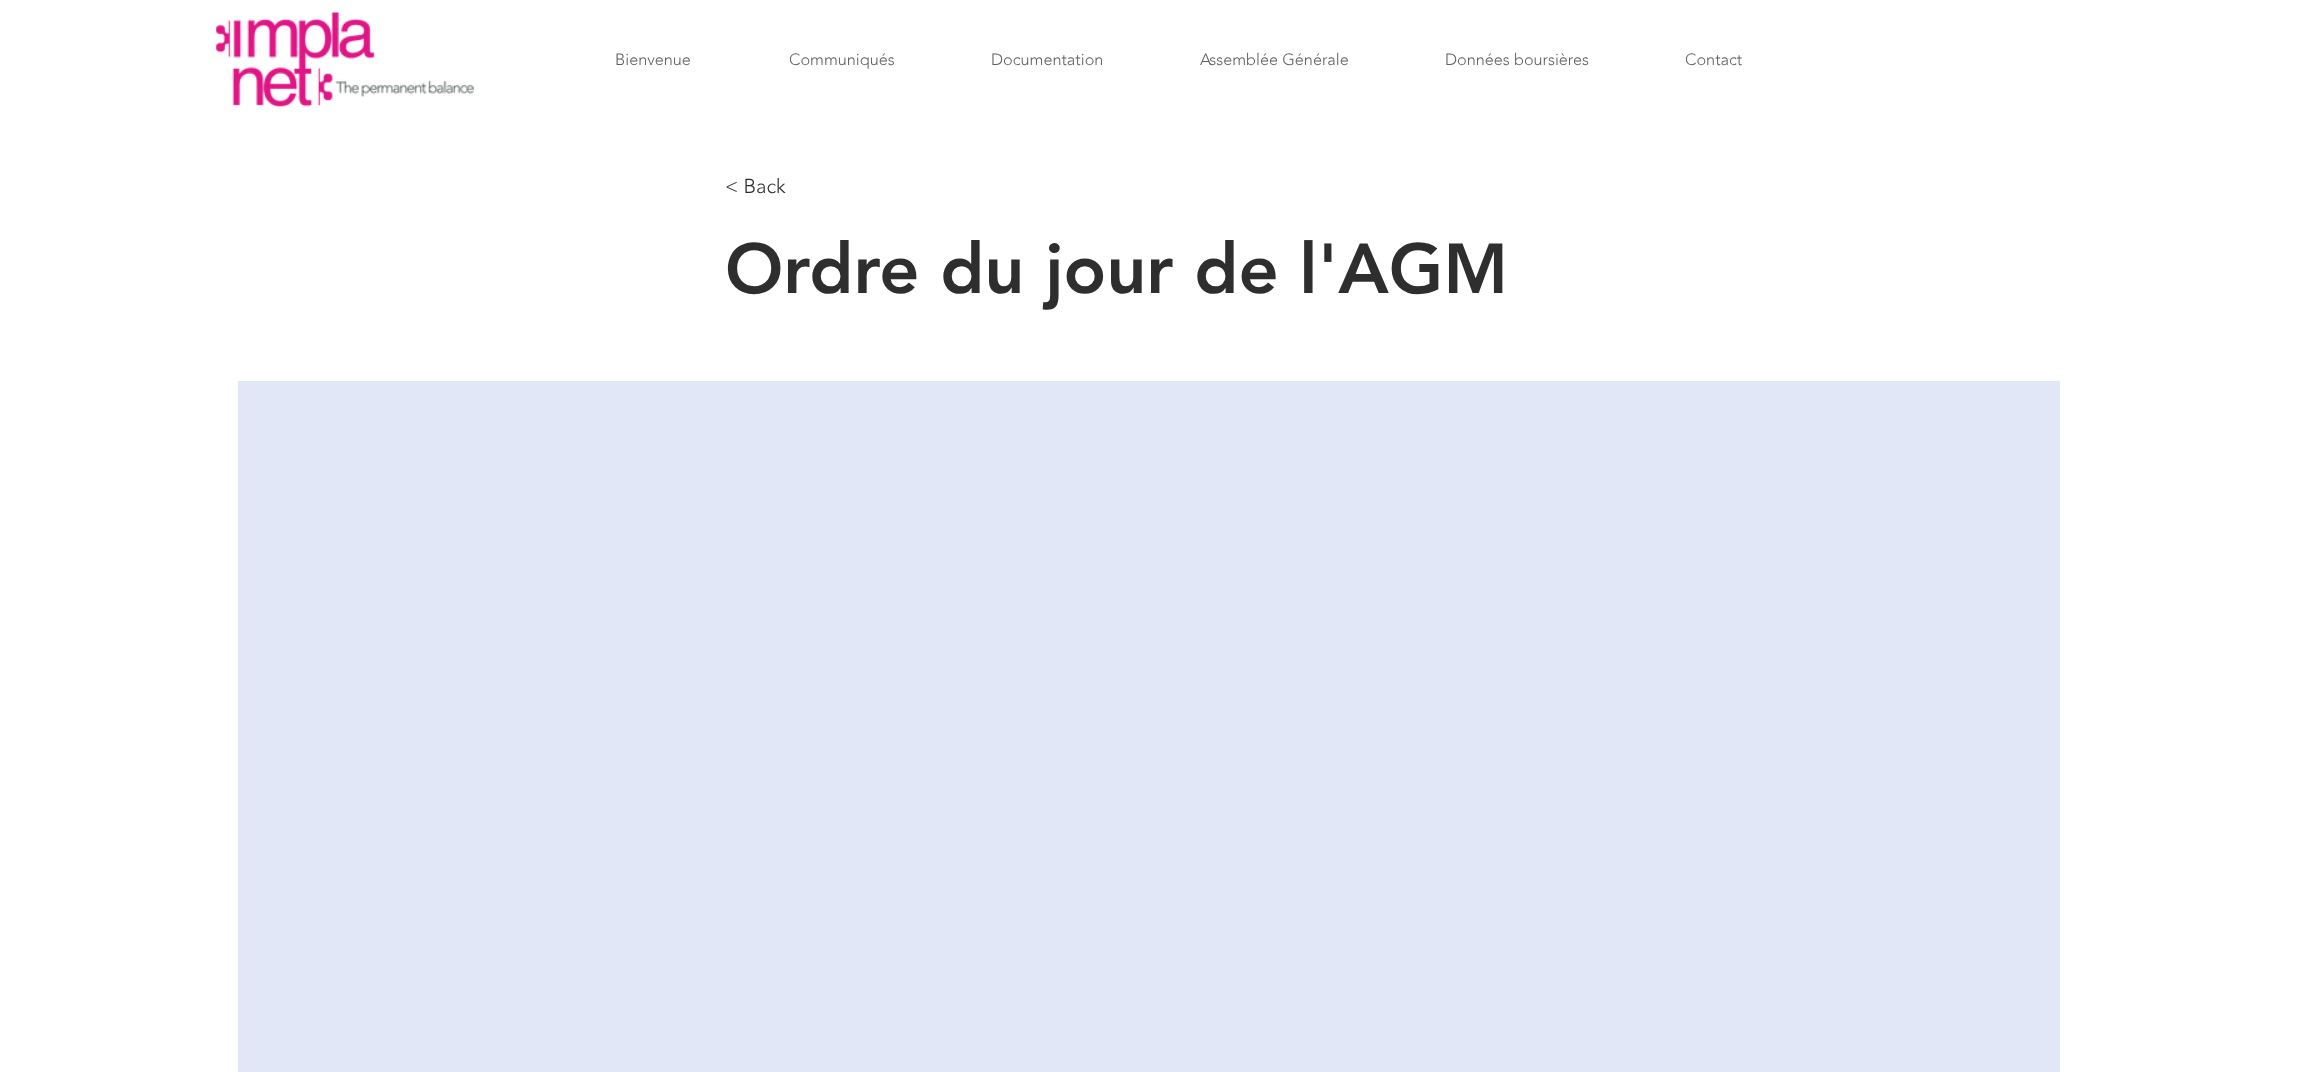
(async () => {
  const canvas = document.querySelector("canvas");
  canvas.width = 2297;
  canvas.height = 1072;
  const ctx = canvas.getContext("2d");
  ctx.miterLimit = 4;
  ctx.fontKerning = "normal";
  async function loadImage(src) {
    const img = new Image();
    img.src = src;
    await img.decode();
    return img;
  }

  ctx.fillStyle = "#ffffff";
  ctx.fillRect(0, 0, 2297, 1072);
  ctx.drawImage(await loadImage("img/1.png"), 216, 12, 258, 95);
  ctx.fillStyle = "#e1e7f7";
  ctx.fillRect(238, 381, 1822, 691);
  ctx.font = "300 16.25px 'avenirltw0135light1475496'";
  ctx.fillStyle = "#605e5e";
  for (const [text, x, y] of [
    ["Bienvenue", 615, 65],
    ["Communiqués", 789, 65],
    ["Documentation", 991, 65],
    ["Assemblée Générale", 1200, 65],
    ["Données boursières", 1445, 65],
    ["Contact", 1685, 65],
  ]) {
    ctx.fillText(text, x, y);
  }
  ctx.font = "300 20px 'avenirltw0135light1475496'";
  ctx.fillStyle = "#2f2e2e";
  ctx.fillText("< Back", 725, 193);
  ctx.font = "900 70px 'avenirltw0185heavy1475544'";
  ctx.fillText("Ordre du jour de l'AGM", 725, 293);
})();
